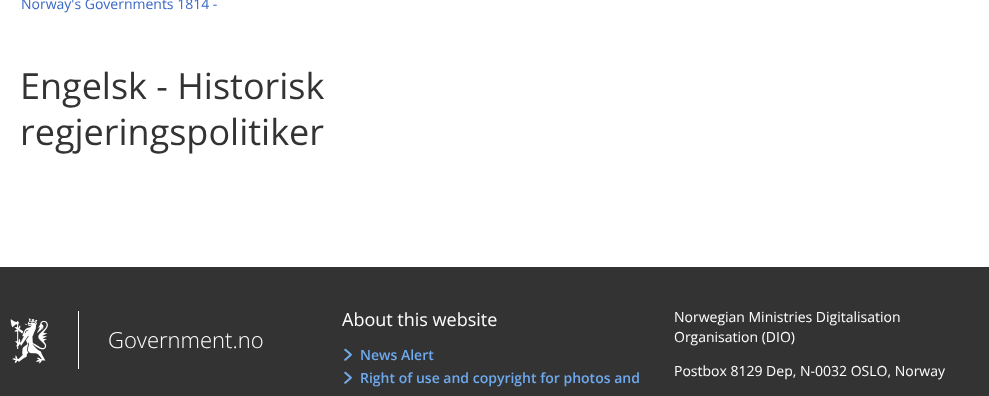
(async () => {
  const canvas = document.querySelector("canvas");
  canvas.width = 989;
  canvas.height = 396;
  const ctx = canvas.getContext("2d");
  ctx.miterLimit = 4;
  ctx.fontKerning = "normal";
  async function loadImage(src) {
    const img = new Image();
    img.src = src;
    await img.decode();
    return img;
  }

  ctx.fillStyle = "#ffffff";
  ctx.fillRect(0, 0, 989, 396);
  ctx.fillStyle = "#333333";
  ctx.fillRect(0, 267, 989, 129);
  ctx.drawImage(await loadImage("img/1.png"), 10, 318, 38, 46);
  ctx.fillStyle = "#ffffff";
  ctx.fillRect(78, 311, 1, 58);
  ctx.drawImage(await loadImage("img/2.png"), 344, 348, 8, 13);
  ctx.drawImage(await loadImage("img/3.png"), 344, 348, 8, 13);
  ctx.drawImage(await loadImage("img/2.png"), 344, 371, 8, 13);
  ctx.drawImage(await loadImage("img/3.png"), 344, 371, 8, 13);
  ctx.font = "14px Open Sans";
  ctx.fillStyle = "#3867c8";
  ctx.fillText("Norway's Governments 1814 -", 21, 9);
  ctx.font = "36px Open Sans";
  ctx.fillStyle = "#333333";
  ctx.fillText("Engelsk - Historisk", 20, 99);
  ctx.fillText("regjeringspolitiker", 20, 145);
  ctx.font = "300 22px Open Sans";
  ctx.fillStyle = "#ffffff";
  ctx.fillText("Government.no", 108, 348);
  ctx.font = "18px Open Sans";
  ctx.fillText("About this website", 342, 326);
  ctx.font = "600 14px Open Sans";
  ctx.fillStyle = "#6eaaf0";
  ctx.fillText("News Alert", 360, 360);
  ctx.fillText("Right of use and copyright for photos and", 360, 383);
  ctx.font = "14px Open Sans";
  ctx.fillStyle = "#ffffff";
  for (const [text, x, y] of [
    ["Norwegian Ministries Digitalisation", 674, 322],
    ["Organisation (DIO)", 674, 342],
    ["Postbox 8129 Dep, N-0032 OSLO, Norway", 674, 376],
  ]) {
    ctx.fillText(text, x, y);
  }
})();
